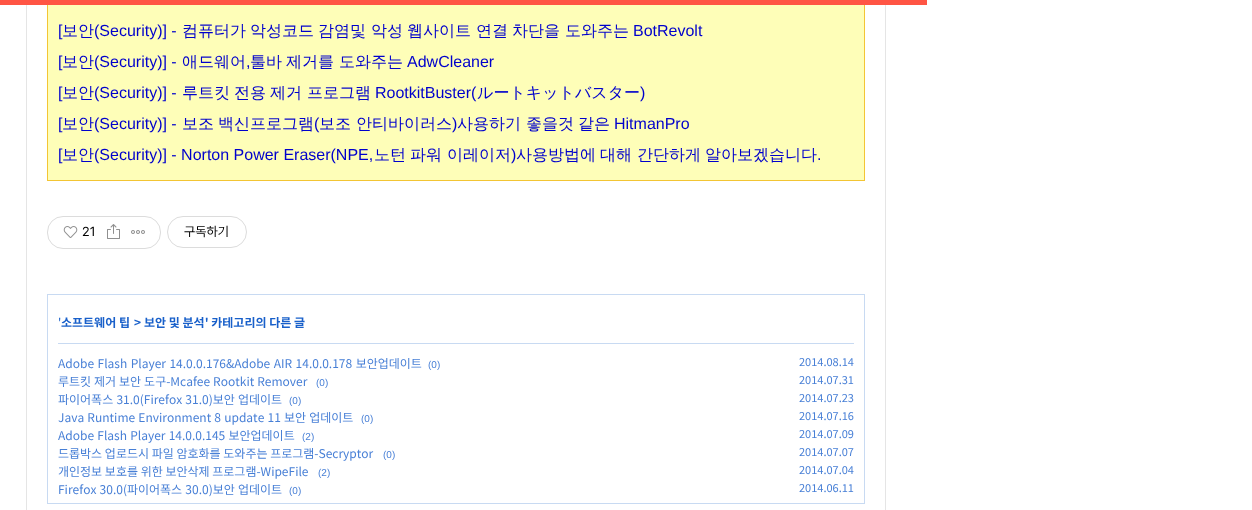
(async () => {
  const canvas = document.querySelector("canvas");
  canvas.width = 1252;
  canvas.height = 510;
  const ctx = canvas.getContext("2d");
  ctx.miterLimit = 4;
  ctx.fontKerning = "none";
  async function loadImage(src) {
    const img = new Image();
    img.src = src;
    await img.decode();
    return img;
  }

  ctx.fillStyle = "#ffffff";
  ctx.fillRect(0, 0, 1252, 510);
  ctx.strokeStyle = "#e5e5e5";
  ctx.strokeRect(26.5, -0.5, 859, 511);
  ctx.fillStyle = "#fefeb8";
  ctx.fillRect(48, 5, 816, 175);
  ctx.strokeStyle = "#f3c534";
  ctx.strokeRect(47.5, -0.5, 817, 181);
  ctx.fillStyle = "#ff5544";
  ctx.fillRect(0, 0, 927, 5);
  ctx.beginPath();
  ctx.roundRect(47.5, 216.5, 113, 32, 15.5);
  ctx.strokeStyle = "#dcdcdc";
  ctx.stroke();
  ctx.drawImage(await loadImage("img/1.png"), 63, 226, 15, 12);
  ctx.drawImage(await loadImage("img/2.png"), 107, 224, 13, 15);
  ctx.drawImage(await loadImage("img/3.png"), 131, 230, 14, 4);
  ctx.beginPath();
  ctx.roundRect(167.5, 216.5, 79, 31, 15.5);
  ctx.stroke();
  ctx.strokeStyle = "#c8daf2";
  ctx.strokeRect(47.5, 294.5, 817, 209);
  ctx.fillStyle = "#c8daf2";
  ctx.fillRect(58, 343, 796, 1);
  ctx.font = "16px Liberation Sans";
  ctx.fillStyle = "#0000cc";
  ctx.fillText("[", 58, 36);
  ctx.font = "500 16px WenQuanYi Zen Hei";
  ctx.fillText("보안", 62, 36);
  ctx.font = "16px Liberation Sans";
  ctx.fillText("(Security)] -", 94, 36);
  ctx.font = "500 16px WenQuanYi Zen Hei";
  for (const [text, x, y] of [
    ["컴퓨터가", 182, 36],
    ["악성코드", 250, 36],
    ["감염및", 318, 36],
    ["악성", 371, 36],
    ["웹사이트", 407, 36],
    ["연결", 476, 36],
    ["차단을", 512, 36],
    ["도와주는", 565, 36],
  ]) {
    ctx.fillText(text, x, y);
  }
  ctx.font = "16px Liberation Sans";
  ctx.fillText("BotRevolt", 633, 36);
  ctx.fillText("[", 58, 67);
  ctx.font = "500 16px WenQuanYi Zen Hei";
  ctx.fillText("보안", 62, 67);
  ctx.font = "16px Liberation Sans";
  ctx.fillText("(Security)] -", 94, 67);
  ctx.font = "500 16px WenQuanYi Zen Hei";
  ctx.fillText("애드웨어", 182, 67);
  ctx.font = "16px Liberation Sans";
  ctx.fillText(",", 246, 67);
  ctx.font = "500 16px WenQuanYi Zen Hei";
  for (const [text, x, y] of [
    ["툴바", 250, 67],
    ["제거를", 286, 67],
    ["도와주는", 339, 67],
  ]) {
    ctx.fillText(text, x, y);
  }
  ctx.font = "16px Liberation Sans";
  ctx.fillText("AdwCleaner", 407, 67);
  ctx.fillText("[", 58, 98);
  ctx.font = "500 16px WenQuanYi Zen Hei";
  ctx.fillText("보안", 62, 98);
  ctx.font = "16px Liberation Sans";
  ctx.fillText("(Security)] -", 94, 98);
  ctx.font = "500 16px WenQuanYi Zen Hei";
  for (const [text, x, y] of [
    ["루트킷", 182, 98],
    ["전용", 234, 98],
    ["제거", 270, 98],
    ["프로그램", 307, 98],
  ]) {
    ctx.fillText(text, x, y);
  }
  ctx.font = "16px Liberation Sans";
  ctx.fillText("RootkitBuster(", 375, 98);
  ctx.font = "500 16px WenQuanYi Zen Hei";
  ctx.fillText("ルートキットバスター", 477, 98);
  ctx.font = "16px Liberation Sans";
  ctx.fillText(")", 640, 98);
  ctx.fillText("[", 58, 129);
  ctx.font = "500 16px WenQuanYi Zen Hei";
  ctx.fillText("보안", 62, 129);
  ctx.font = "16px Liberation Sans";
  ctx.fillText("(Security)] -", 94, 129);
  ctx.font = "500 16px WenQuanYi Zen Hei";
  ctx.fillText("보조", 182, 129);
  ctx.fillText("백신프로그램", 218, 129);
  ctx.font = "16px Liberation Sans";
  ctx.fillText("(", 314, 129);
  ctx.font = "500 16px WenQuanYi Zen Hei";
  ctx.fillText("보조", 319, 129);
  ctx.fillText("안티바이러스", 356, 129);
  ctx.font = "16px Liberation Sans";
  ctx.fillText(")", 452, 129);
  ctx.font = "500 16px WenQuanYi Zen Hei";
  for (const [text, x, y] of [
    ["사용하기", 457, 129],
    ["좋을것", 526, 129],
    ["같은", 578, 129],
  ]) {
    ctx.fillText(text, x, y);
  }
  ctx.font = "16px Liberation Sans";
  ctx.fillText("HitmanPro", 614, 129);
  ctx.fillText("[", 58, 160);
  ctx.font = "500 16px WenQuanYi Zen Hei";
  ctx.fillText("보안", 62, 160);
  ctx.font = "16px Liberation Sans";
  ctx.fillText("(Security)] - Norton Power Eraser(NPE,", 94, 160);
  ctx.font = "500 16px WenQuanYi Zen Hei";
  for (const [text, x, y] of [
    ["노턴", 374, 160],
    ["파워", 410, 160],
    ["이레이저", 447, 160],
  ]) {
    ctx.fillText(text, x, y);
  }
  ctx.font = "16px Liberation Sans";
  ctx.fillText(")", 511, 160);
  ctx.font = "500 16px WenQuanYi Zen Hei";
  for (const [text, x, y] of [
    ["사용방법에", 516, 160],
    ["대해", 600, 160],
    ["간단하게", 637, 160],
    ["알아보겠습니다", 705, 160],
  ]) {
    ctx.fillText(text, x, y);
  }
  ctx.font = "16px Liberation Sans";
  ctx.fillText(".", 817, 160);
  ctx.font = "13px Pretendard";
  ctx.fillStyle = "#000000";
  ctx.fillText("21", 82, 236);
  ctx.fillText("구독하기", 184, 236);
  ctx.font = "12px Noto Sans KR";
  ctx.fillStyle = "#1960ca";
  ctx.fillText("'", 58, 327);
  ctx.font = "bold 12px Noto Sans KR";
  for (const [text, x, y] of [
    ["소프트웨어 팁", 61, 327],
    [">", 134, 327],
    ["보안 및 분석' 카테고리의 다른 글", 144, 327],
  ]) {
    ctx.fillText(text, x, y);
  }
  ctx.wordSpacing = "0.75px";
  ctx.font = "12px Noto Sans KR";
  ctx.fillStyle = "#477fd6";
  ctx.fillText("Adobe Flash Player 14.0.0.176&Adobe AIR 14.0.0.178 보안업데이트", 58, 368);
  ctx.wordSpacing = "0px";
  ctx.font = "10px Liberation Sans";
  ctx.fillText("(0)", 428, 368);
  ctx.font = "11px Noto Sans KR";
  ctx.fillText("2014.08.14", 799, 366);
  ctx.wordSpacing = "0.25px";
  ctx.font = "12px Noto Sans KR";
  ctx.fillText("루트킷 제거 보안 도구-Mcafee Rootkit Remover", 58, 386);
  ctx.wordSpacing = "0px";
  ctx.font = "10px Liberation Sans";
  ctx.fillText("(0)", 316, 386);
  ctx.font = "11px Noto Sans KR";
  ctx.fillText("2014.07.31", 799, 384);
  ctx.wordSpacing = "0.5px";
  ctx.font = "12px Noto Sans KR";
  ctx.fillText("파이어폭스 31.0(Firefox 31.0)보안 업데이트", 58, 404);
  ctx.wordSpacing = "0px";
  ctx.font = "10px Liberation Sans";
  ctx.fillText("(0)", 289, 404);
  ctx.font = "11px Noto Sans KR";
  ctx.fillText("2014.07.23", 799, 402);
  ctx.wordSpacing = "0.5px";
  ctx.font = "12px Noto Sans KR";
  ctx.fillText("Java Runtime Environment 8 update 11 보안 업데이트", 58, 422);
  ctx.wordSpacing = "0px";
  ctx.font = "10px Liberation Sans";
  ctx.fillText("(0)", 361, 422);
  ctx.font = "11px Noto Sans KR";
  ctx.fillText("2014.07.16", 799, 420);
  ctx.wordSpacing = "0.5px";
  ctx.font = "12px Noto Sans KR";
  ctx.fillText("Adobe Flash Player 14.0.0.145 보안업데이트", 58, 440);
  ctx.wordSpacing = "0px";
  ctx.font = "10px Liberation Sans";
  ctx.fillText("(2)", 302, 440);
  ctx.font = "11px Noto Sans KR";
  ctx.fillText("2014.07.09", 799, 438);
  ctx.font = "12px Noto Sans KR";
  ctx.fillText("드롭박스 업로드시 파일 암호화를 도와주는 프로그램-Secryptor", 58, 458);
  ctx.font = "10px Liberation Sans";
  ctx.fillText("(0)", 383, 458);
  ctx.font = "11px Noto Sans KR";
  ctx.fillText("2014.07.07", 799, 456);
  ctx.font = "12px Noto Sans KR";
  ctx.fillText("개인정보 보호를 위한 보안삭제 프로그램-WipeFile", 58, 476);
  ctx.font = "10px Liberation Sans";
  ctx.fillText("(2)", 318, 476);
  ctx.font = "11px Noto Sans KR";
  ctx.fillText("2014.07.04", 799, 474);
  ctx.wordSpacing = "0.5px";
  ctx.font = "12px Noto Sans KR";
  ctx.fillText("Firefox 30.0(파이어폭스 30.0)보안 업데이트", 58, 494);
  ctx.wordSpacing = "0px";
  ctx.font = "10px Liberation Sans";
  ctx.fillText("(0)", 289, 494);
  ctx.font = "11px Noto Sans KR";
  ctx.fillText("2014.06.11", 799, 492);
})();
